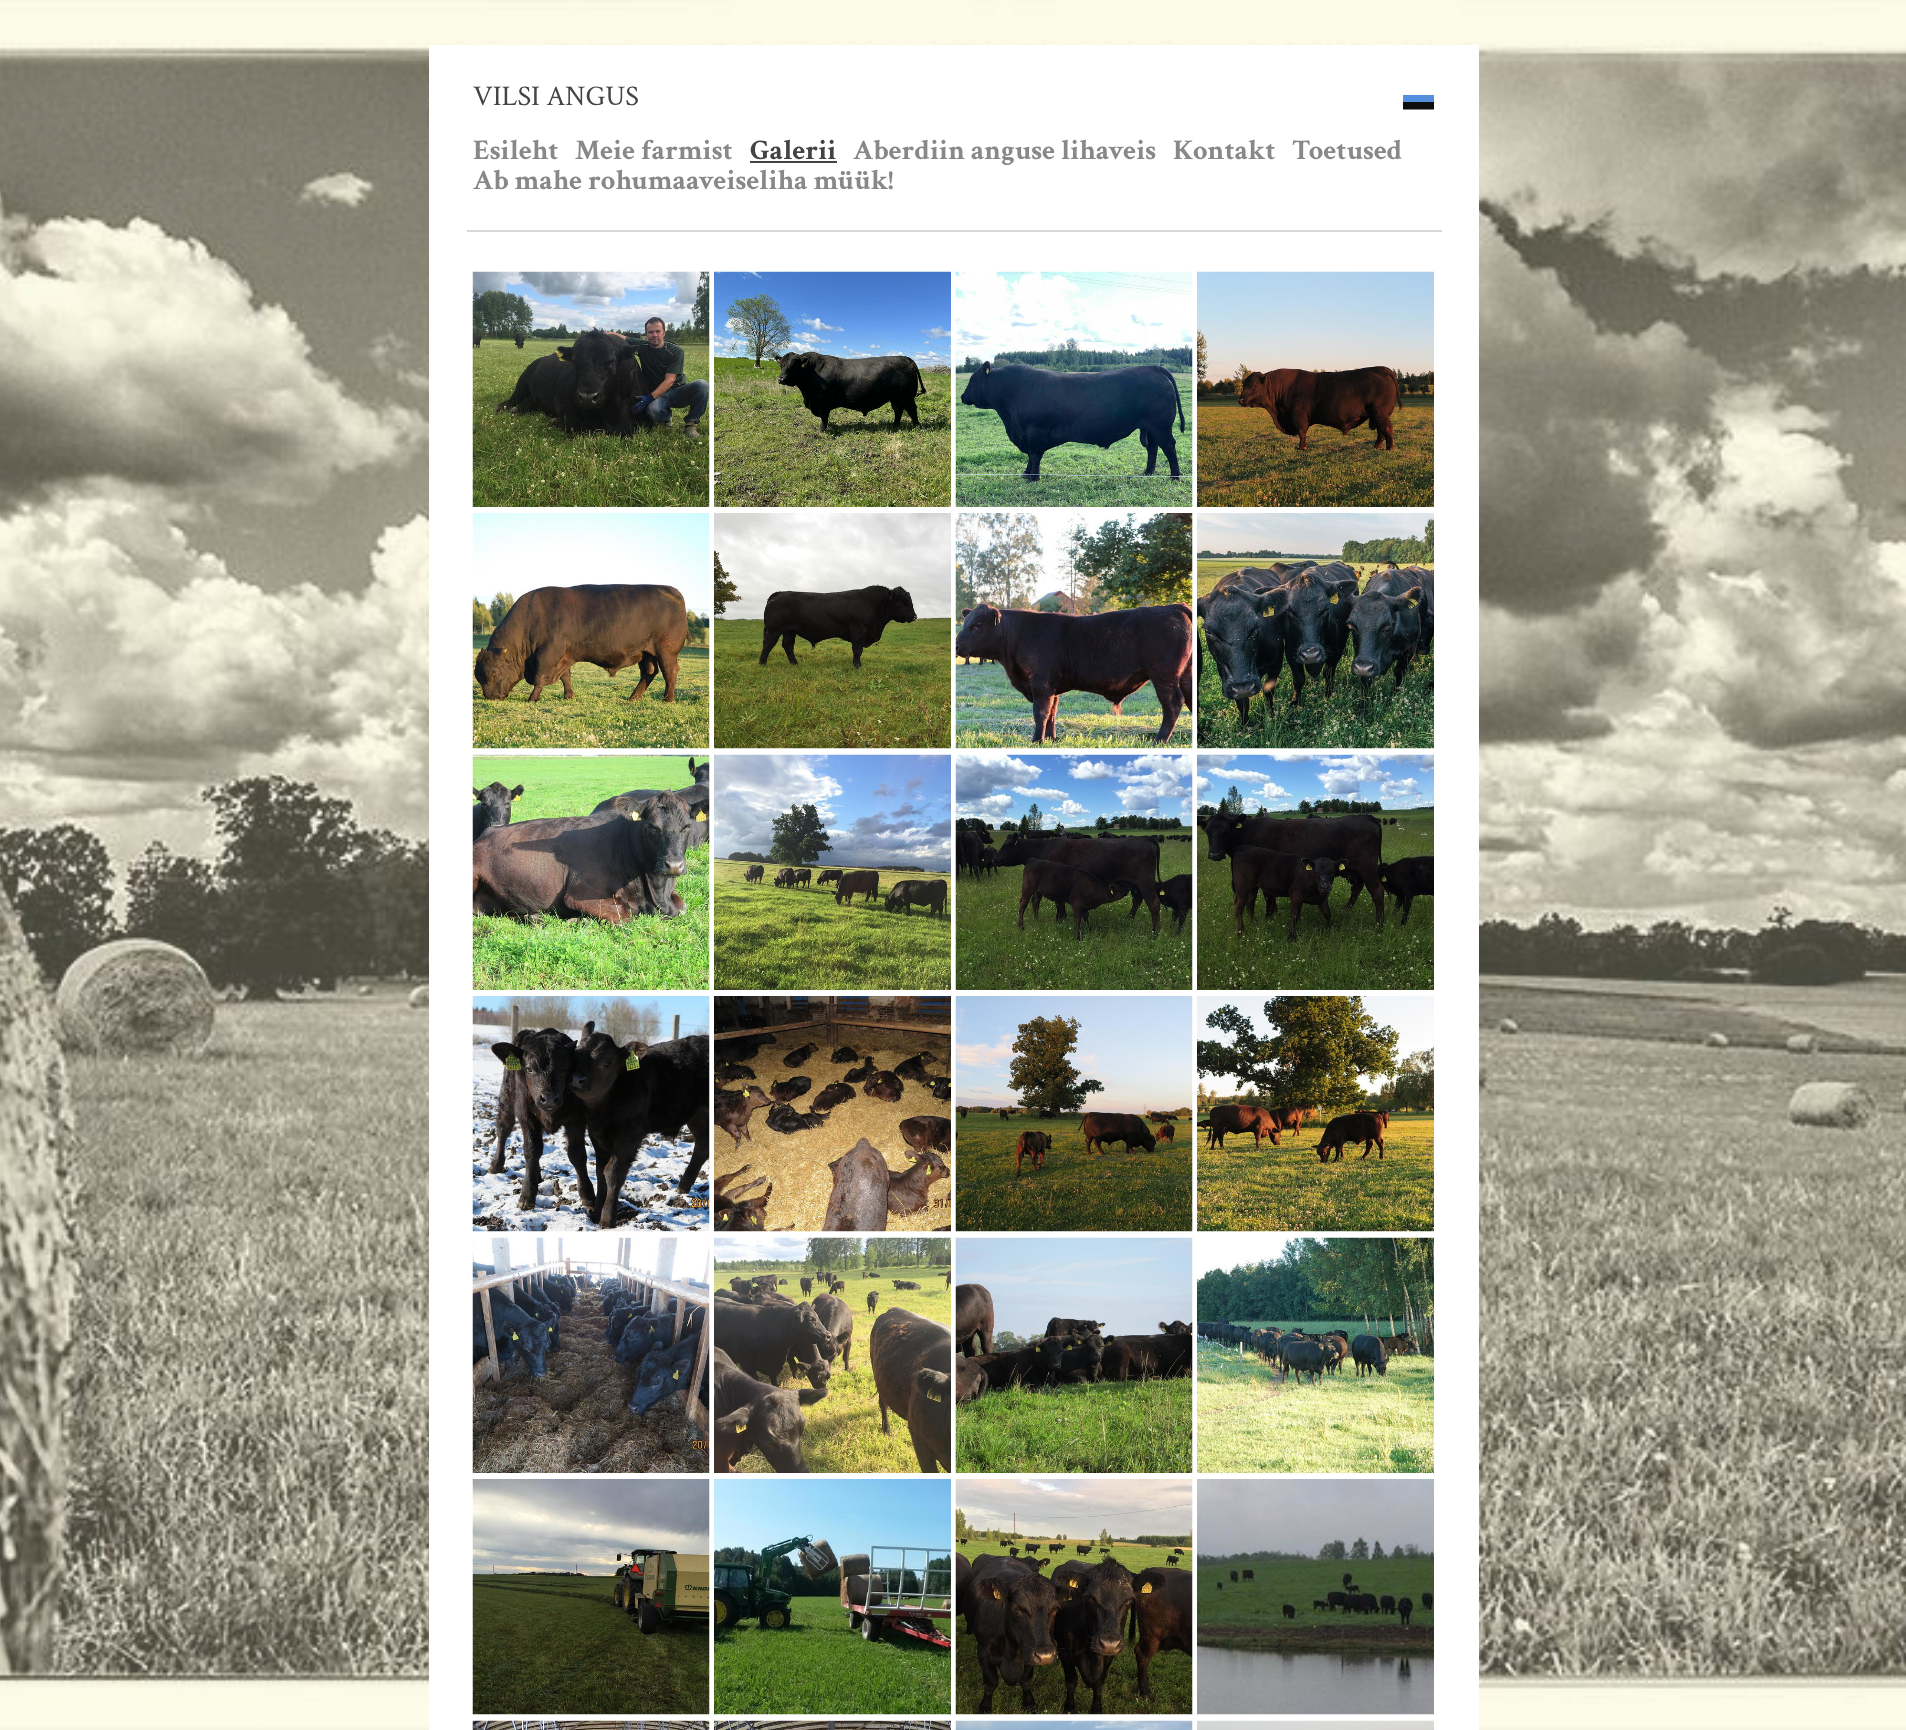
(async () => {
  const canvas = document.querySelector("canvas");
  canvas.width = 1906;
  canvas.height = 1730;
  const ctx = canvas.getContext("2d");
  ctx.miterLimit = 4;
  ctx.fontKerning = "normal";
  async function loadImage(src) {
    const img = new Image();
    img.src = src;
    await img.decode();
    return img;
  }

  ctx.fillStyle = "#ffffff";
  ctx.fillRect(0, 0, 1906, 1730);
  ctx.drawImage(await loadImage("img/1.png"), 0, 0, 1906, 1730);
  ctx.fillRect(429, 45, 1050, 1685);
  ctx.fillStyle = "#d8d8d8";
  ctx.fillRect(467, 230, 975, 2);
  ctx.drawImage(await loadImage("img/2.png"), 1403, 95, 31, 22);
  ctx.fillStyle = "#444444";
  ctx.fillRect(750, 161, 87, 2);
  ctx.drawImage(await loadImage("img/3.png"), 472, 271, 238, 236);
  ctx.drawImage(await loadImage("img/4.png"), 714, 271, 237, 236);
  ctx.drawImage(await loadImage("img/5.png"), 955, 271, 238, 236);
  ctx.drawImage(await loadImage("img/6.png"), 1197, 271, 237, 236);
  ctx.drawImage(await loadImage("img/7.png"), 472, 513, 238, 236);
  ctx.drawImage(await loadImage("img/8.png"), 714, 513, 237, 236);
  ctx.drawImage(await loadImage("img/9.png"), 955, 513, 238, 236);
  ctx.drawImage(await loadImage("img/10.png"), 1197, 513, 237, 236);
  ctx.drawImage(await loadImage("img/11.png"), 472, 754, 238, 236);
  ctx.drawImage(await loadImage("img/12.png"), 714, 754, 237, 236);
  ctx.drawImage(await loadImage("img/13.png"), 955, 754, 238, 236);
  ctx.drawImage(await loadImage("img/14.png"), 1197, 754, 237, 236);
  ctx.drawImage(await loadImage("img/15.png"), 472, 996, 238, 236);
  ctx.drawImage(await loadImage("img/16.png"), 714, 996, 237, 236);
  ctx.drawImage(await loadImage("img/17.png"), 955, 996, 238, 236);
  ctx.drawImage(await loadImage("img/18.png"), 1197, 996, 237, 236);
  ctx.drawImage(await loadImage("img/19.png"), 472, 1237, 238, 236);
  ctx.drawImage(await loadImage("img/20.png"), 714, 1237, 237, 236);
  ctx.drawImage(await loadImage("img/21.png"), 955, 1237, 238, 236);
  ctx.drawImage(await loadImage("img/22.png"), 1197, 1237, 237, 236);
  ctx.drawImage(await loadImage("img/23.png"), 472, 1479, 238, 236);
  ctx.drawImage(await loadImage("img/24.png"), 714, 1479, 237, 236);
  ctx.drawImage(await loadImage("img/25.png"), 955, 1479, 238, 236);
  ctx.drawImage(await loadImage("img/26.png"), 1197, 1479, 237, 236);
  ctx.drawImage(await loadImage("img/27.png"), 472, 1720, 238, 10);
  ctx.drawImage(await loadImage("img/28.png"), 714, 1720, 237, 10);
  ctx.drawImage(await loadImage("img/29.png"), 955, 1720, 238, 10);
  ctx.drawImage(await loadImage("img/30.png"), 1197, 1720, 237, 10);
  ctx.font = "28.5px Crimson Text";
  ctx.fillText("VILSI ANGUS", 473, 105);
  ctx.font = "bold 28.5px Crimson Text";
  ctx.fillStyle = "#888888";
  ctx.fillText("Esileht", 473, 159);
  ctx.fillText("Meie farmist", 575, 159);
  ctx.fillStyle = "#444444";
  ctx.fillText("Galerii", 750, 159);
  ctx.fillStyle = "#888888";
  for (const [text, x, y] of [
    ["Aberdiin anguse lihaveis", 853, 159],
    ["Kontakt", 1173, 159],
    ["Toetused", 1292, 159],
    ["Ab mahe rohumaaveiseliha müük!", 473, 189],
  ]) {
    ctx.fillText(text, x, y);
  }
})();
